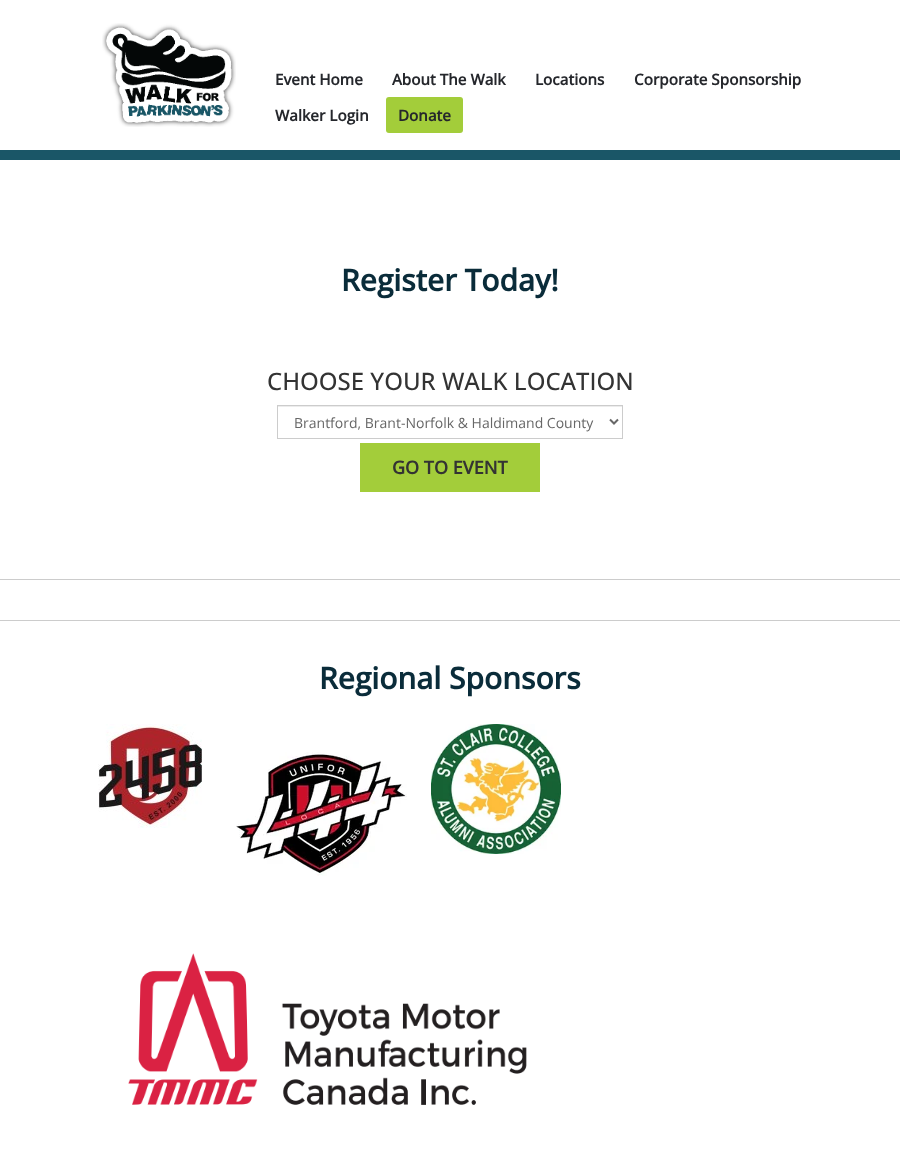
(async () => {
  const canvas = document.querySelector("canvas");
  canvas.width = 900;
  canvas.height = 1163;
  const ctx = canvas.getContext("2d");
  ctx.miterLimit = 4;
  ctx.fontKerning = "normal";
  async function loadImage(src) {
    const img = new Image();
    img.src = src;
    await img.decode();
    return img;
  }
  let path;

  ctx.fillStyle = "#ffffff";
  ctx.fillRect(0, 0, 900, 1163);
  ctx.fillStyle = "#1a5667";
  ctx.fillRect(0, 150, 900, 10);
  ctx.drawImage(await loadImage("img/1.png"), 102, 23, 134, 104);
  ctx.fillStyle = "#a3cd3a";
  ctx.beginPath();
  ctx.roundRect(386, 97, 77, 36, 3);
  ctx.fill();
  ctx.fillStyle = "#ececec";
  ctx.fillRect(278, 406, 344, 1);
  ctx.strokeStyle = "#cccccc";
  ctx.strokeRect(277.5, 405.5, 345, 33);
  path = new Path2D("M610 419.5L614 423.5L618 419.5");
  ctx.strokeStyle = "#676767";
  ctx.lineWidth = 2;
  ctx.stroke(path);
  for (const [x, y, w, h, color] of [
    [360, 443, 180, 49, "#a3cd3a"],
    [0, 579, 900, 1, "#cccccc"],
    [0, 620, 900, 1, "#cccccc"],
  ]) {
    ctx.fillStyle = color;
    ctx.fillRect(x, y, w, h);
  }
  ctx.drawImage(await loadImage("img/2.png"), 98, 724, 104, 104);
  ctx.drawImage(await loadImage("img/3.png"), 236, 752, 171, 124);
  ctx.drawImage(await loadImage("img/4.png"), 431, 724, 130, 130);
  ctx.drawImage(await loadImage("img/5.png"), 128, 953, 399, 152);
  ctx.font = "bold 15.25px Open Sans";
  ctx.fillStyle = "#25272c";
  for (const [text, x, y] of [
    ["Event Home", 275, 85],
    ["About The Walk", 392, 85],
    ["Locations", 535, 85],
    ["Corporate Sponsorship", 634, 85],
    ["Walker Login", 275, 121],
    ["Donate", 398, 121],
  ]) {
    ctx.fillText(text, x, y);
  }
  ctx.font = "bold 30px Open Sans";
  ctx.fillStyle = "#0a2c3a";
  ctx.fillText("Register Today!", 341, 291);
  ctx.font = "500 24px Open Sans";
  ctx.fillStyle = "#333333";
  ctx.fillText("CHOOSE YOUR WALK LOCATION", 267, 390);
  ctx.font = "14px Open Sans";
  ctx.fillStyle = "#676767";
  ctx.fillText("Brantford, Brant-Norfolk & Haldimand County", 294, 428);
  ctx.font = "bold 18px Open Sans";
  ctx.fillStyle = "#333333";
  ctx.fillText("GO TO EVENT", 392, 474);
  ctx.font = "bold 30px Open Sans";
  ctx.fillStyle = "#0a2c3a";
  ctx.fillText("Regional Sponsors", 319, 689);
})();
